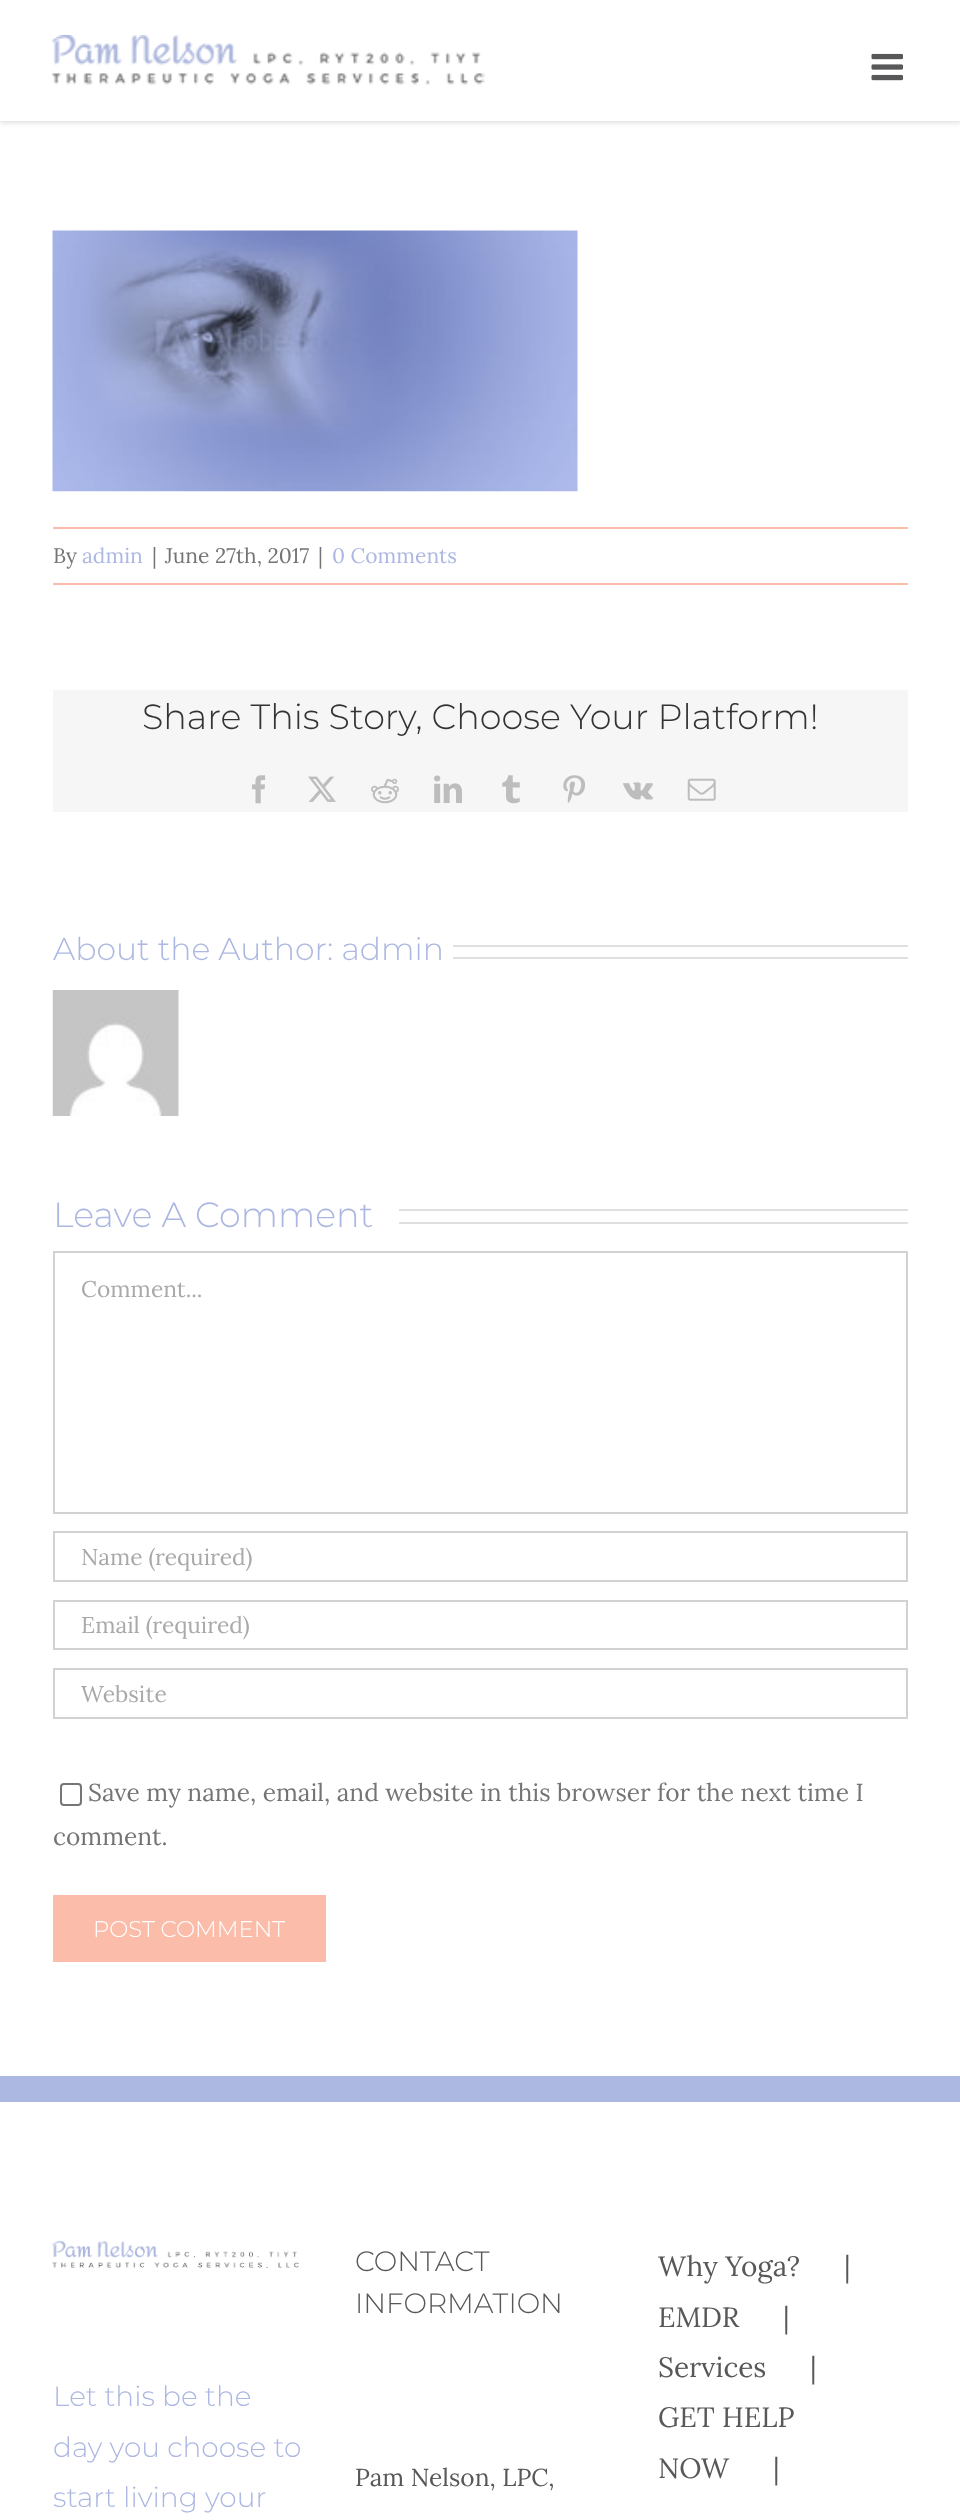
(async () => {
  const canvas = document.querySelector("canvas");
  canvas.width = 960;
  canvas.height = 2520;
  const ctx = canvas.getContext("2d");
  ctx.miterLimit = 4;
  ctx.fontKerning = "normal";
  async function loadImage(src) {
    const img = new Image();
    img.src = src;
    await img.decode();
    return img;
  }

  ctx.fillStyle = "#ffffff";
  ctx.fillRect(0, 0, 960, 2520);
  ctx.fillStyle = "rgba(0, 0, 0, 0.12)";
  ctx.filter = "blur(2.5px)";
  ctx.beginPath();
  ctx.rect(0, 2, 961, 121);
  ctx.fill();
  ctx.filter = "none";
  ctx.fillStyle = "#ffffff";
  ctx.fillRect(0, 0, 960, 121);
  ctx.drawImage(await loadImage("img/1.png"), 52, 35, 433, 50);
  ctx.drawImage(await loadImage("img/2.png"), 871, 53, 32, 28);
  ctx.drawImage(await loadImage("img/3.png"), 52, 230, 526, 262);
  for (const [x, y, w, h, color] of [
    [53, 527, 855, 2, "#fbbda9"],
    [53, 583, 855, 2, "#fbbda9"],
    [53, 690, 855, 122, "#f6f6f6"],
  ]) {
    ctx.fillStyle = color;
    ctx.fillRect(x, y, w, h);
  }
  ctx.drawImage(await loadImage("img/4.png"), 252, 775, 14, 29);
  ctx.drawImage(await loadImage("img/5.png"), 308, 776, 28, 26);
  ctx.drawImage(await loadImage("img/6.png"), 371, 778, 28, 26);
  ctx.drawImage(await loadImage("img/7.png"), 434, 775, 28, 28);
  ctx.drawImage(await loadImage("img/8.png"), 502, 775, 18, 29);
  ctx.drawImage(await loadImage("img/9.png"), 563, 775, 22, 28);
  ctx.drawImage(await loadImage("img/10.png"), 623, 782, 30, 18);
  ctx.drawImage(await loadImage("img/11.png"), 687, 778, 29, 23);
  ctx.fillStyle = "#e0dede";
  ctx.fillRect(453, 945, 455, 2);
  ctx.fillRect(453, 957, 455, 2);
  ctx.drawImage(await loadImage("img/12.png"), 52, 990, 127, 126);
  ctx.fillRect(399, 1209, 509, 2);
  ctx.fillRect(399, 1222, 509, 2);
  ctx.strokeStyle = "#d2d2d2";
  ctx.lineWidth = 2;
  ctx.strokeRect(54, 1252, 853, 261);
  ctx.strokeRect(54, 1532, 853, 49);
  ctx.strokeRect(54, 1601, 853, 48);
  ctx.strokeRect(54, 1669, 853, 49);
  ctx.beginPath();
  ctx.roundRect(61, 1784, 20, 21, 3);
  ctx.strokeStyle = "#767676";
  ctx.stroke();
  ctx.fillStyle = "#fbbda9";
  ctx.fillRect(53, 1895, 273, 67);
  ctx.fillStyle = "#adb8e2";
  ctx.fillRect(0, 2076, 960, 26);
  ctx.drawImage(await loadImage("img/13.png"), 52, 2240, 248, 28);
  ctx.font = "21px Lora";
  ctx.fillStyle = "#747474";
  ctx.fillText("By", 53, 563);
  ctx.fillStyle = "#adb8e2";
  ctx.fillText("admin", 82, 563);
  ctx.fillStyle = "#747474";
  for (const [text, x, y] of [
    ["|", 152, 563],
    ["June 27th, 2017", 165, 563],
    ["|", 318, 563],
  ]) {
    ctx.fillText(text, x, y);
  }
  ctx.fillStyle = "#adb8e2";
  ctx.fillText("0 Comments", 332, 563);
  ctx.font = "300 35px Montserrat";
  ctx.fillStyle = "#333333";
  ctx.fillText("Share This Story, Choose Your Platform!", 142, 729);
  ctx.font = "300 31.5px Montserrat";
  ctx.fillStyle = "#adb8e2";
  ctx.fillText("About the Author: admin", 53, 960);
  ctx.font = "300 35px Montserrat";
  ctx.fillText("Leave A Comment", 53, 1227);
  ctx.font = "22.75px Lora";
  ctx.fillStyle = "#aaa9a9";
  for (const [text, x, y] of [
    ["Comment...", 81, 1297],
    ["Name (required)", 81, 1565],
    ["Email (required)", 81, 1633],
    ["Website", 81, 1702],
  ]) {
    ctx.fillText(text, x, y);
  }
  ctx.font = "24.5px Lora";
  ctx.fillStyle = "#747474";
  ctx.fillText("Save my name, email, and website in this browser for the next time I", 88, 1801);
  ctx.fillText("comment.", 53, 1845);
  ctx.font = "300 22.75px Montserrat";
  ctx.fillStyle = "#ffffff";
  ctx.fillText("POST COMMENT", 93, 1937);
  ctx.font = "300 28px Montserrat";
  ctx.fillStyle = "#adb8e2";
  for (const [text, x, y] of [
    ["Let this be the", 53, 2406],
    ["day you choose to", 53, 2457],
    ["start living your", 53, 2507],
  ]) {
    ctx.fillText(text, x, y);
  }
  ctx.fillStyle = "#58585a";
  ctx.fillText("CONTACT", 355, 2271);
  ctx.fillText("INFORMATION", 355, 2313);
  ctx.font = "24.5px Lora";
  ctx.fillText("Pam Nelson, LPC,", 355, 2486);
  ctx.font = "28px Lora";
  for (const [text, x, y] of [
    ["Why Yoga?", 658, 2276],
    ["|", 844, 2276],
    ["EMDR", 658, 2327],
    ["|", 783, 2327],
    ["Services", 658, 2377],
    ["|", 810, 2377],
    ["GET HELP", 658, 2427],
    ["NOW", 658, 2478],
    ["|", 773, 2478],
  ]) {
    ctx.fillText(text, x, y);
  }
})();
